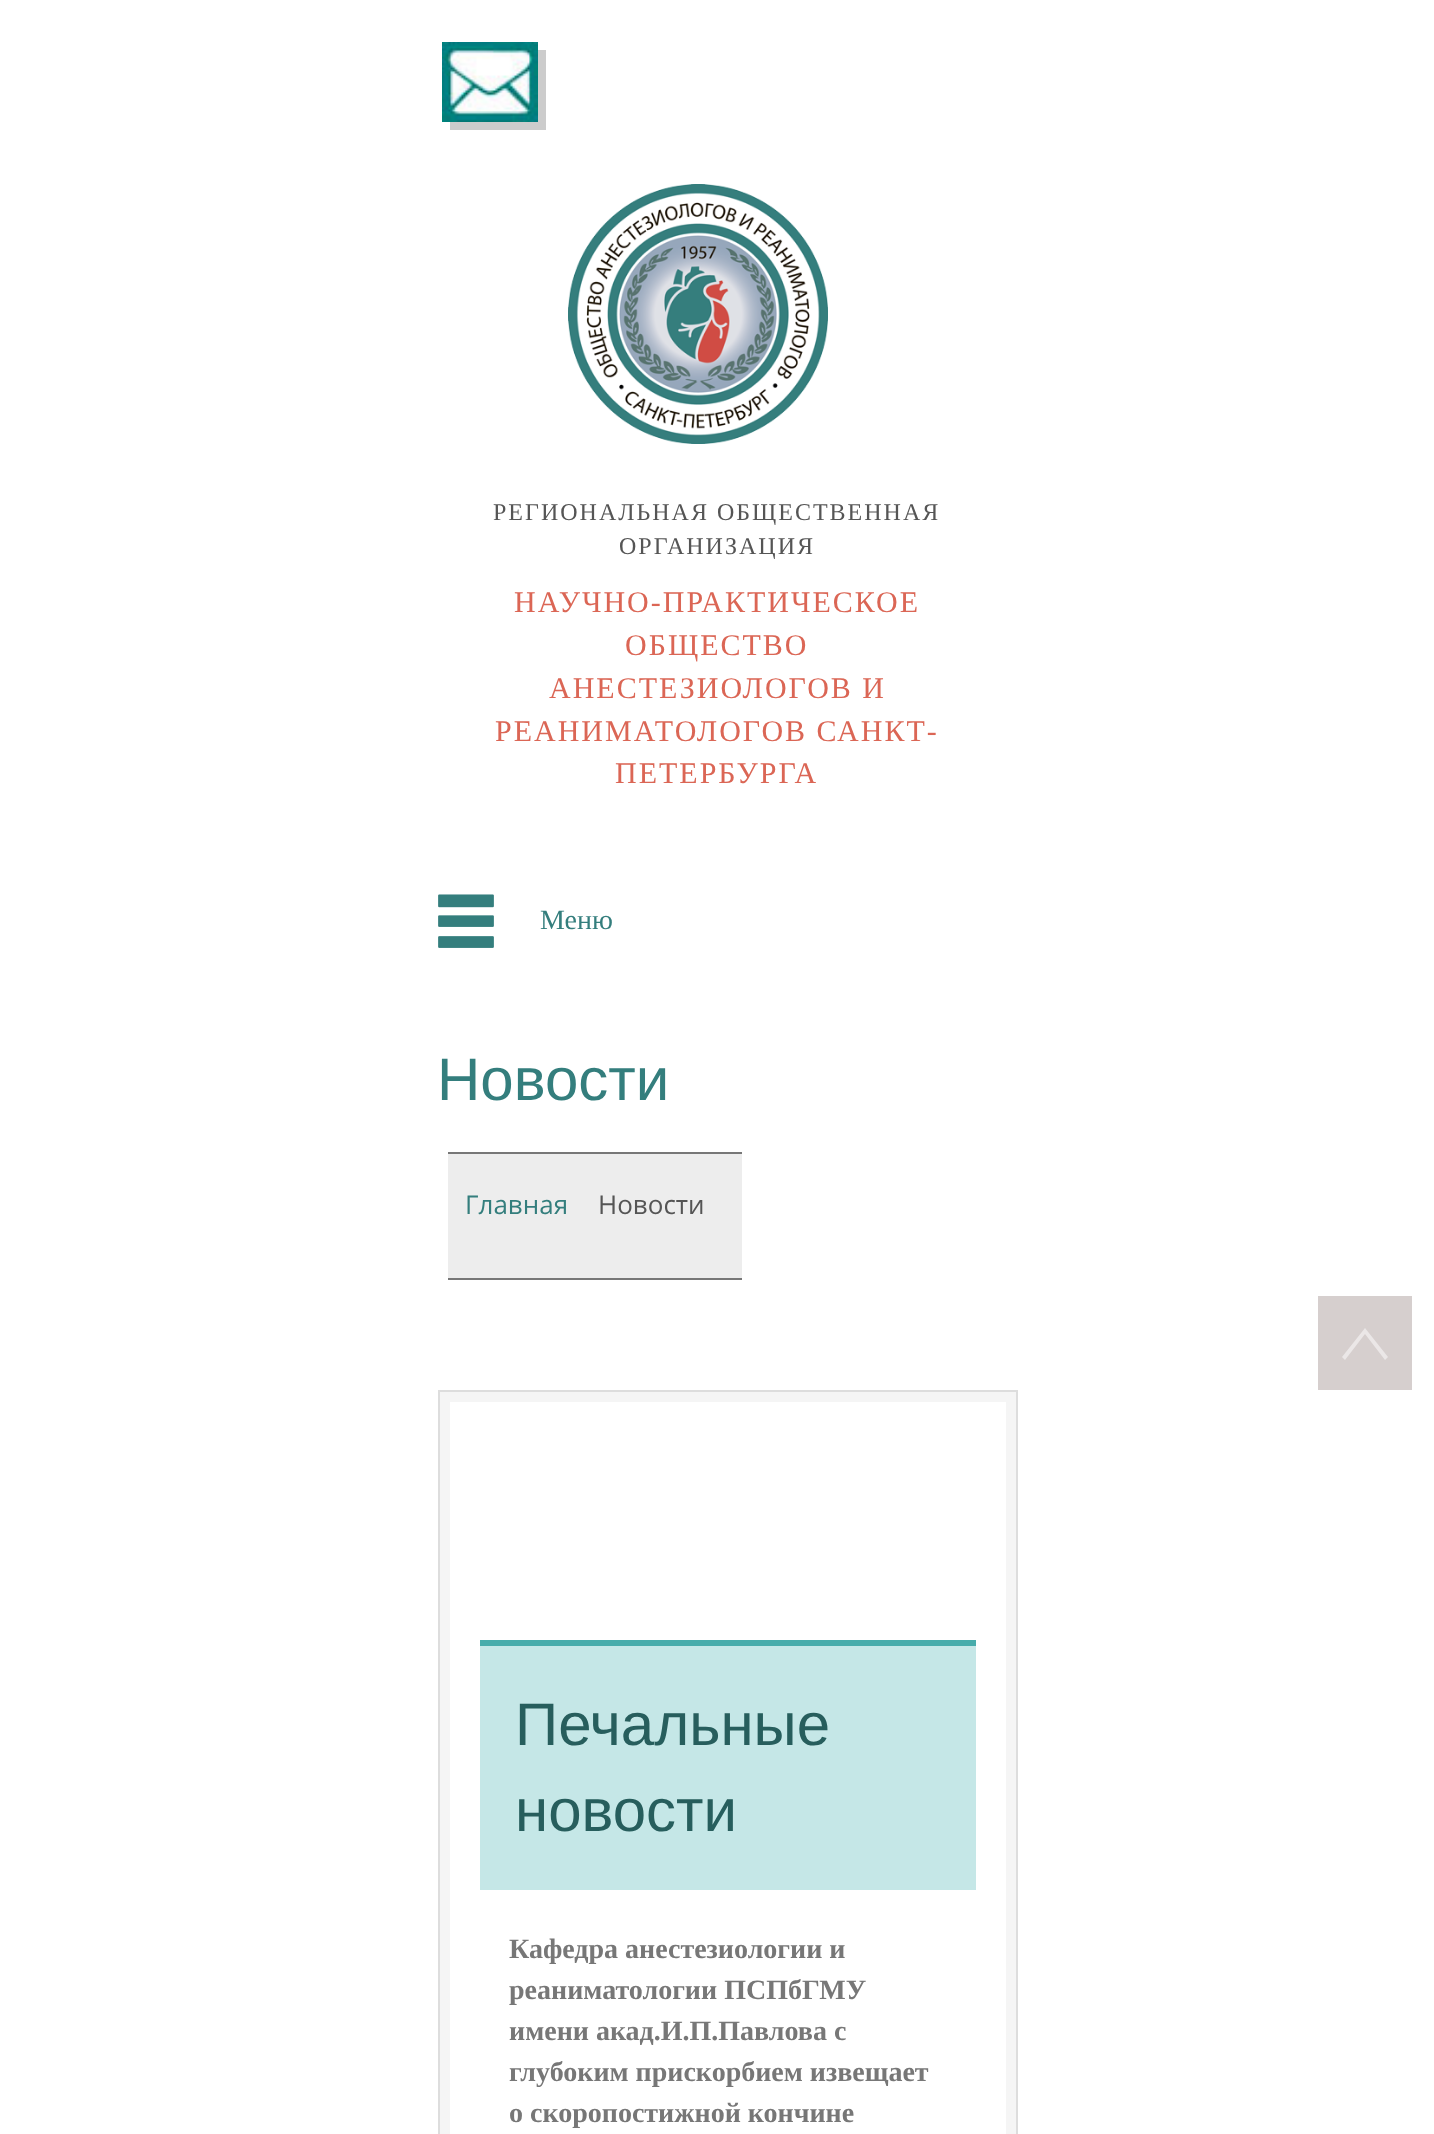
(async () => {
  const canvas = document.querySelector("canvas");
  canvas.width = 1434;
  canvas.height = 2134;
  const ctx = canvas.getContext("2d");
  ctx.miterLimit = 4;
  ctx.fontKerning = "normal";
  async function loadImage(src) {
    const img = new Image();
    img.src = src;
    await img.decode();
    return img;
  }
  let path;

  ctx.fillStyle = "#ffffff";
  ctx.fillRect(0, 0, 1434, 2134);
  ctx.fillStyle = "#cccccc";
  path = new Path2D("M450 122V130H546V50H538V122Z");
  ctx.fill(path);
  ctx.drawImage(await loadImage("img/1.png"), 442, 42, 96, 80);
  ctx.drawImage(await loadImage("img/2.png"), 568, 184, 260, 260);
  ctx.drawImage(await loadImage("img/3.png"), 438, 894, 56, 54);
  for (const [x, y, w, h, color] of [
    [448, 1154, 294, 124, "#ededed"],
    [448, 1152, 294, 2, "#777777"],
    [448, 1278, 294, 2, "#777777"],
  ]) {
    ctx.fillStyle = color;
    ctx.fillRect(x, y, w, h);
  }
  ctx.strokeStyle = "#f5f5f5";
  ctx.lineWidth = 10;
  ctx.strokeRect(445, 1397, 566, 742);
  ctx.strokeStyle = "#dddddd";
  ctx.lineWidth = 2;
  ctx.strokeRect(439, 1391, 578, 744);
  for (const [x, y, w, h, color] of [
    [480, 1646, 496, 244, "#c5e7e7"],
    [480, 1640, 496, 6, "#47acab"],
    [1318, 1296, 94, 94, "#d6cfce"],
  ]) {
    ctx.fillStyle = color;
    ctx.fillRect(x, y, w, h);
  }
  ctx.fillStyle = "#ebe7e7";
  path = new Path2D("M1365 1328L1388 1357L1385 1360L1365 1334L1345 1360L1342 1357Z");
  ctx.fill(path);
  ctx.letterSpacing = "2px";
  ctx.font = "24px Liberation Serif";
  ctx.fillStyle = "#555555";
  ctx.fillText("РЕГИОНАЛЬНАЯ ОБЩЕСТВЕННАЯ", 493, 520);
  ctx.fillText("ОРГАНИЗАЦИЯ", 619, 554);
  ctx.font = "30px Liberation Serif";
  ctx.fillStyle = "#db6655";
  for (const [text, x, y] of [
    ["НАУЧНО-ПРАКТИЧЕСКОЕ", 514, 612],
    ["ОБЩЕСТВО", 625, 655],
    ["АНЕСТЕЗИОЛОГОВ И", 549, 698],
    ["РЕАНИМАТОЛОГОВ САНКТ-", 495, 741],
    ["ПЕТЕРБУРГА", 615, 783],
  ]) {
    ctx.fillText(text, x, y);
  }
  ctx.letterSpacing = "0px";
  ctx.font = "28px Liberation Serif";
  ctx.fillStyle = "#347e7d";
  ctx.fillText("Меню", 540, 929);
  ctx.font = "60px Liberation Sans";
  ctx.fillText("Новости", 437, 1100);
  ctx.font = "26px Open Sans";
  ctx.fillText("Главная", 465, 1214);
  ctx.fillStyle = "#555555";
  ctx.fillText("Новости", 598, 1214);
  ctx.font = "60px Liberation Sans";
  ctx.fillStyle = "#275e5d";
  ctx.fillText("Печальные", 515, 1745);
  ctx.fillText("новости", 515, 1831);
  ctx.font = "bold 28px Liberation Serif";
  ctx.fillStyle = "#777777";
  for (const [text, x, y] of [
    ["Кафедра анестезиологии и", 509, 1958],
    ["реаниматологии ПСПбГМУ", 509, 1999],
    ["имени акад.И.П.Павлова с", 509, 2040],
    ["глубоким прискорбием извещает", 509, 2081],
    ["о скоропостижной кончине", 509, 2122],
  ]) {
    ctx.fillText(text, x, y);
  }
})();
